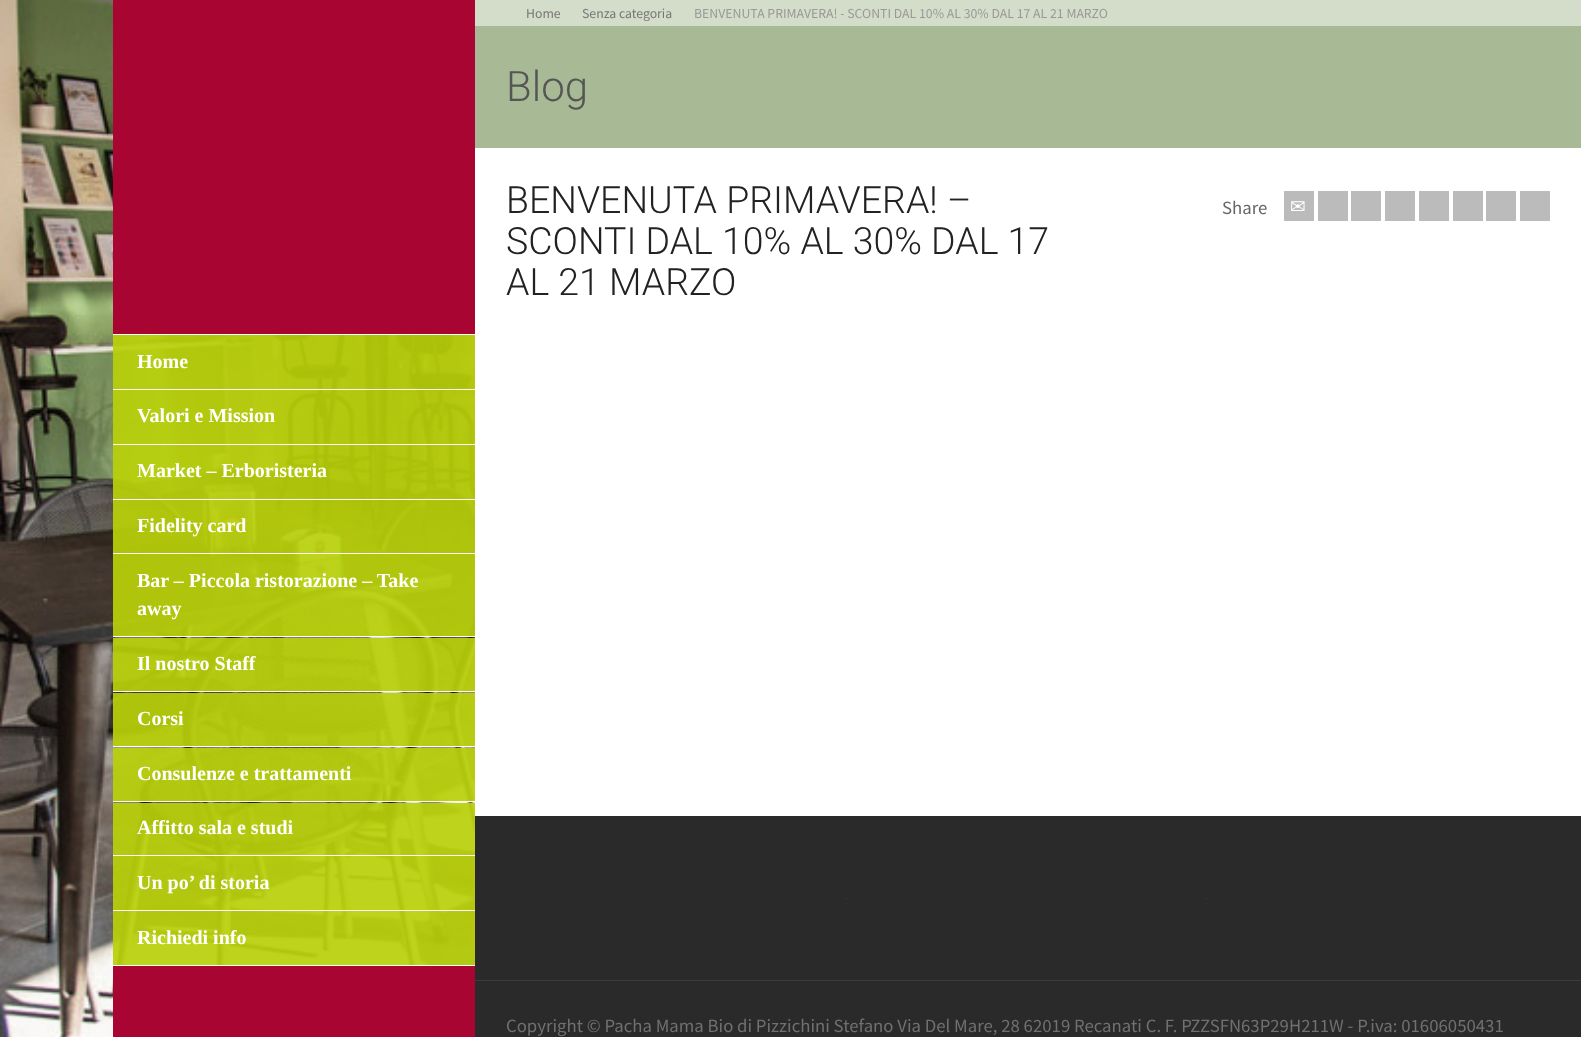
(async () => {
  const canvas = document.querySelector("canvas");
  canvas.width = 1581;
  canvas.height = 1037;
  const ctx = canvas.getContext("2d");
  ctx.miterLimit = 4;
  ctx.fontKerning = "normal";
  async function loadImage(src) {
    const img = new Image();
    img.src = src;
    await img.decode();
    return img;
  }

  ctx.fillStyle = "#2a2a2a";
  ctx.fillRect(0, 0, 1581, 1037);
  ctx.drawImage(await loadImage("img/1.png"), 0, 0, 475, 1037);
  for (const [x, y, w, h, color] of [
    [113, 0, 362, 334, "#a80532"],
    [113, 334, 362, 1, "#ffffff"],
    [113, 335, 362, 54, "rgba(185, 208, 9, 0.92)"],
    [113, 389, 362, 1, "#ffffff"],
    [113, 390, 362, 54, "rgba(185, 208, 9, 0.92)"],
    [113, 444, 362, 1, "#ffffff"],
    [113, 445, 362, 54, "rgba(185, 208, 9, 0.92)"],
    [113, 499, 362, 1, "#ffffff"],
    [113, 500, 362, 53, "rgba(185, 208, 9, 0.92)"],
    [113, 553, 362, 1, "#ffffff"],
    [113, 554, 362, 82, "rgba(185, 208, 9, 0.92)"],
    [113, 636, 362, 1, "#ffffff"],
    [113, 638, 362, 53, "rgba(185, 208, 9, 0.92)"],
    [113, 691, 362, 1, "#ffffff"],
    [113, 693, 362, 53, "rgba(185, 208, 9, 0.92)"],
    [113, 746, 362, 1, "#ffffff"],
    [113, 748, 362, 53, "rgba(185, 208, 9, 0.92)"],
    [113, 801, 362, 1, "#ffffff"],
    [113, 803, 362, 52, "rgba(185, 208, 9, 0.92)"],
    [113, 855, 362, 1, "#ffffff"],
    [113, 856, 362, 54, "rgba(185, 208, 9, 0.92)"],
    [113, 910, 362, 1, "#ffffff"],
    [113, 911, 362, 54, "rgba(185, 208, 9, 0.92)"],
    [113, 965, 362, 1, "#ffffff"],
    [113, 966, 362, 71, "#a80532"],
    [475, 26, 1106, 122, "#a8ba95"],
    [475, 0, 1106, 26, "#d4ddca"],
    [475, 148, 1106, 668, "#ffffff"],
    [1284, 191, 30, 30, "#bbbbbb"],
    [1318, 191, 30, 30, "#bbbbbb"],
    [1351, 191, 30, 30, "#bbbbbb"],
    [1385, 191, 30, 30, "#bbbbbb"],
    [1419, 191, 30, 30, "#bbbbbb"],
    [1453, 191, 30, 30, "#bbbbbb"],
    [1486, 191, 30, 30, "#bbbbbb"],
    [1520, 191, 30, 30, "#bbbbbb"],
    [846, 898, 1, 1, "#3c3c3c"],
    [1206, 898, 1, 1, "#3c3c3c"],
    [475, 980, 1106, 1, "#3c3c3c"],
  ]) {
    ctx.fillStyle = color;
    ctx.fillRect(x, y, w, h);
  }
  ctx.font = "bold 20px Liberation Serif";
  ctx.fillStyle = "#ffffff";
  for (const [text, x, y] of [
    ["Home", 137, 368],
    ["Valori e Mission", 137, 422],
    ["Market – Erboristeria", 137, 477],
    ["Fidelity card", 137, 532],
    ["Bar – Piccola ristorazione – Take", 137, 587],
    ["away", 137, 615],
    ["Il nostro Staff", 137, 670],
    ["Corsi", 137, 725],
    ["Consulenze e trattamenti", 137, 780],
    ["Affitto sala e studi", 137, 834],
    ["Un po’ di storia", 137, 889],
    ["Richiedi info", 137, 944],
  ]) {
    ctx.fillText(text, x, y);
  }
  ctx.font = "13.75px Source Sans Pro";
  ctx.fillStyle = "#777777";
  ctx.fillText("Home", 526, 18);
  ctx.fillText("Senza categoria", 582, 18);
  ctx.fillStyle = "#999999";
  ctx.fillText("BENVENUTA PRIMAVERA! - SCONTI DAL 10% AL 30% DAL 17 AL 21 MARZO", 694, 18);
  ctx.font = "300 42px Roboto";
  ctx.fillStyle = "#555555";
  ctx.fillText("Blog", 506, 101);
  ctx.font = "300 37.5px Roboto";
  ctx.fillStyle = "#222222";
  for (const [text, x, y] of [
    ["BENVENUTA PRIMAVERA! –", 506, 213],
    ["SCONTI DAL 10% AL 30% DAL 17", 506, 254],
    ["AL 21 MARZO", 506, 295],
  ]) {
    ctx.fillText(text, x, y);
  }
  ctx.font = "18.75px Source Sans Pro";
  ctx.fillStyle = "#666666";
  ctx.fillText("Share", 1222, 214);
  ctx.font = "18.75px DejaVu Sans";
  ctx.fillStyle = "#ffffff";
  ctx.fillText("✉", 1290, 213);
  ctx.font = "18.75px Source Sans Pro";
  ctx.fillStyle = "#707070";
  ctx.fillText("Copyright © Pacha Mama Bio di Pizzichini Stefano Via Del Mare, 28 62019 Recanati C. F. PZZSFN63P29H211W - P.iva: 01606050431", 506, 1032);
})();
